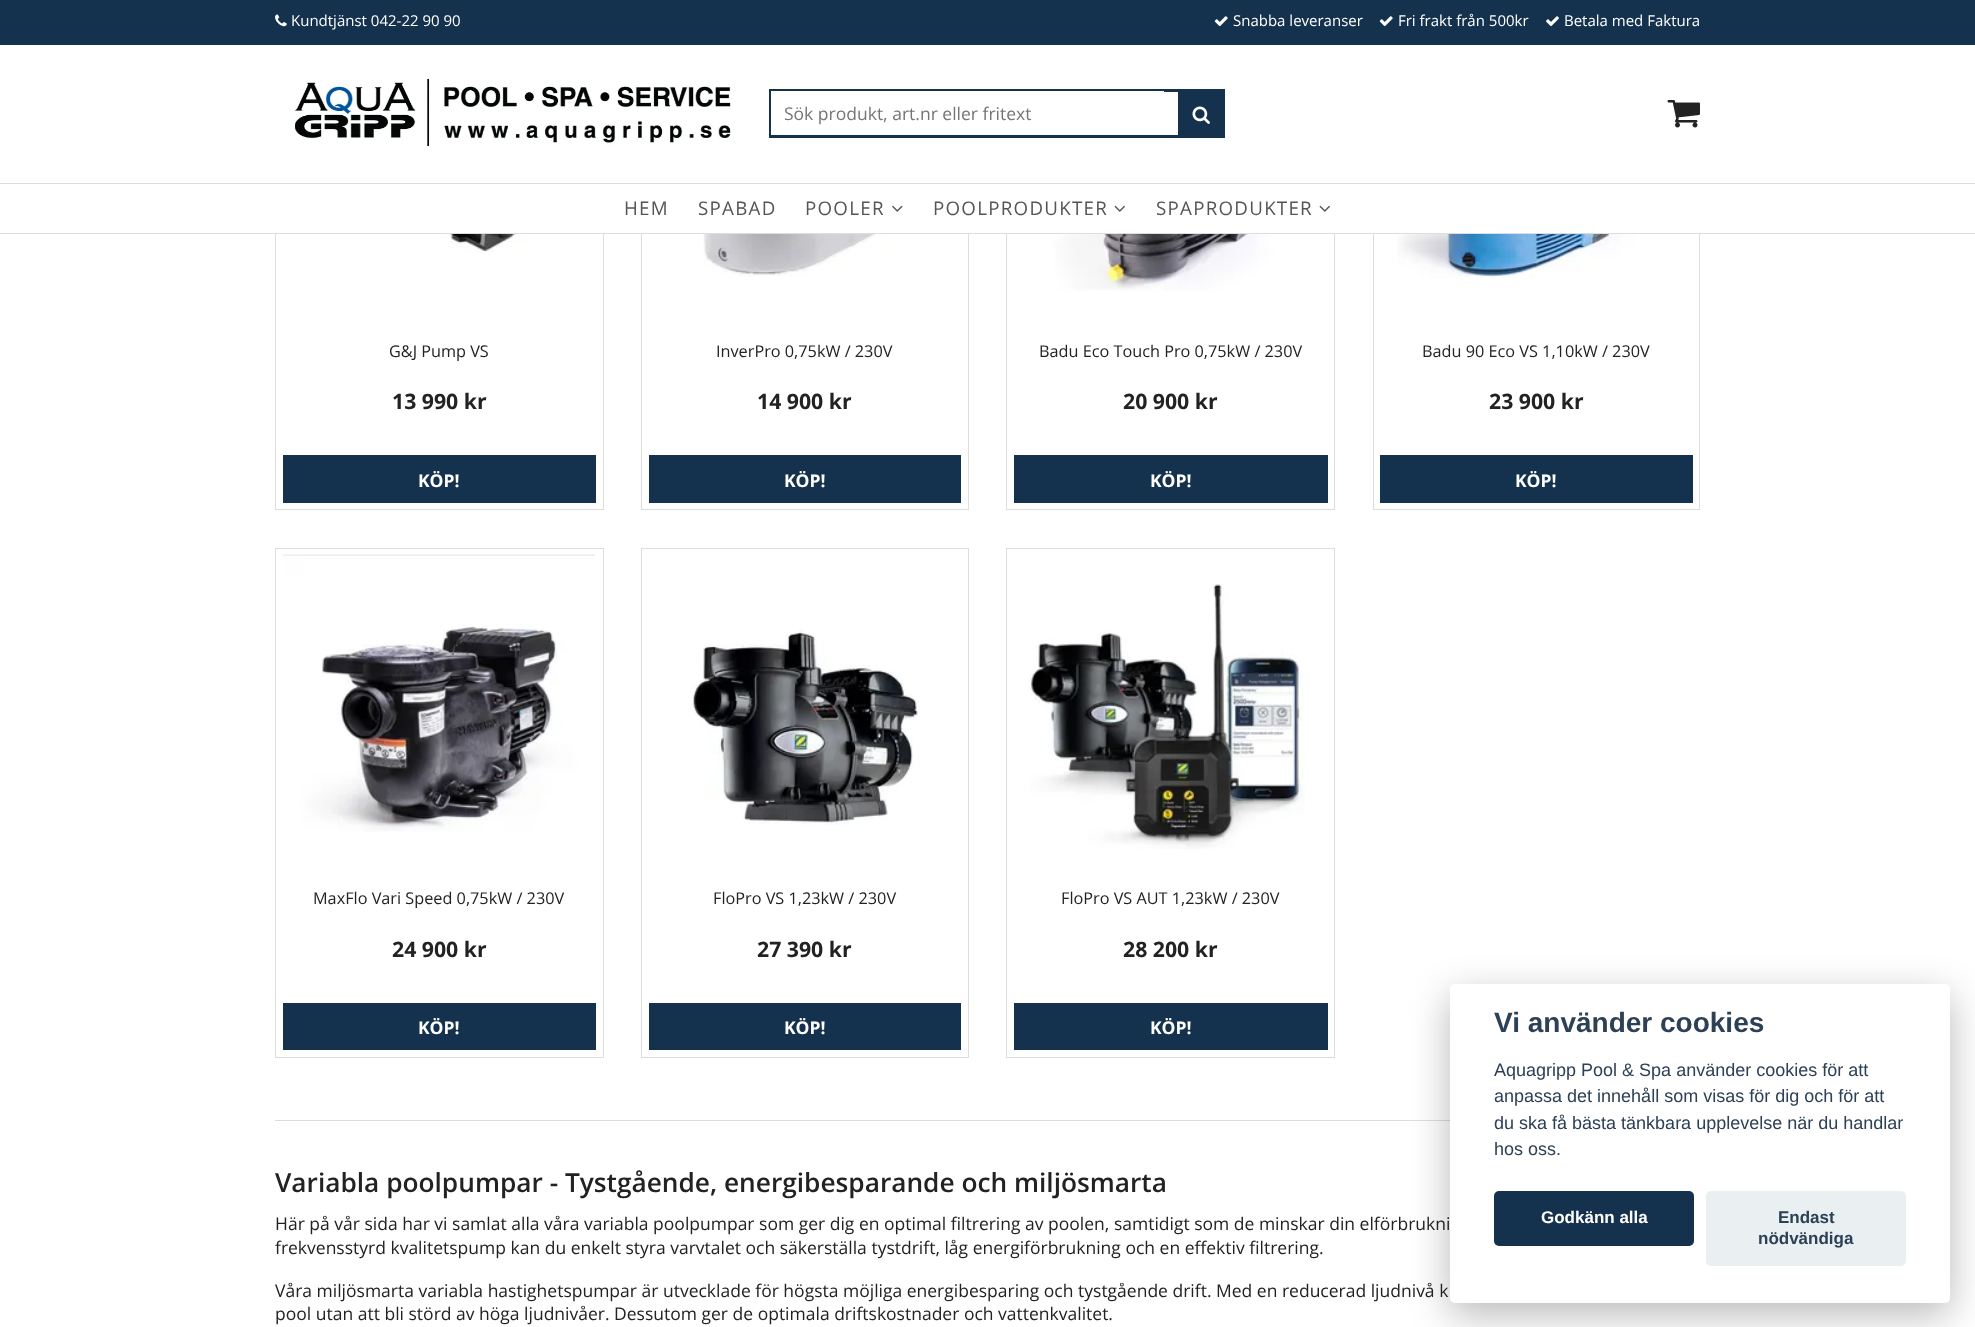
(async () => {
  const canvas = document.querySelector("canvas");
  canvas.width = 1975;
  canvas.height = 1327;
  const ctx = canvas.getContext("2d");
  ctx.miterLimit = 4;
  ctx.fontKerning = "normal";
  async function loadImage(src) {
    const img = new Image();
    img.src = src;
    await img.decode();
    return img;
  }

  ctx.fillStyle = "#ffffff";
  ctx.fillRect(0, 0, 1975, 1327);
  ctx.strokeStyle = "#dddddd";
  ctx.strokeRect(275.5, 0.5, 328, 509);
  ctx.strokeRect(641.5, 0.5, 327, 509);
  ctx.strokeRect(1006.5, 0.5, 328, 509);
  ctx.strokeRect(1373.5, 0.5, 326, 509);
  ctx.fillRect(275, 45, 1425, 188);
  ctx.fillStyle = "#14324d";
  ctx.fillRect(0, 0, 1975, 45);
  ctx.drawImage(await loadImage("img/1.png"), 275, 14, 12, 13);
  ctx.drawImage(await loadImage("img/2.png"), 1214, 16, 14, 11);
  ctx.drawImage(await loadImage("img/2.png"), 1379, 16, 14, 11);
  ctx.drawImage(await loadImage("img/3.png"), 1546, 16, 13, 11);
  ctx.drawImage(await loadImage("img/4.png"), 294, 79, 437, 68);
  ctx.strokeStyle = "#14324d";
  ctx.lineWidth = 3;
  ctx.strokeRect(770.5, 90.5, 434, 46);
  ctx.fillStyle = "#ffffff";
  ctx.fillRect(771, 91, 393, 44);
  ctx.fillStyle = "#14324d";
  ctx.fillRect(1178, 89, 47, 49);
  ctx.drawImage(await loadImage("img/5.png"), 1192, 106, 18, 18);
  ctx.drawImage(await loadImage("img/6.png"), 1667, 100, 33, 28);
  ctx.fillStyle = "#dddddd";
  ctx.fillRect(0, 183, 1975, 1);
  ctx.fillRect(0, 233, 1975, 1);
  ctx.drawImage(await loadImage("img/7.png"), 892, 205, 11, 7);
  ctx.drawImage(await loadImage("img/8.png"), 1114, 205, 11, 7);
  ctx.drawImage(await loadImage("img/8.png"), 1319, 205, 11, 7);
  ctx.drawImage(await loadImage("img/9.png"), 332, 234, 221, 18);
  ctx.fillStyle = "#14324d";
  ctx.fillRect(283, 455, 313, 48);
  ctx.drawImage(await loadImage("img/10.png"), 689, 234, 243, 43);
  ctx.fillRect(649, 455, 312, 48);
  ctx.drawImage(await loadImage("img/11.png"), 1054, 234, 235, 57);
  ctx.fillRect(1014, 455, 314, 48);
  ctx.drawImage(await loadImage("img/12.png"), 1397, 234, 259, 45);
  ctx.fillRect(1380, 455, 313, 48);
  ctx.strokeStyle = "#dddddd";
  ctx.lineWidth = 1;
  ctx.strokeRect(275.5, 548.5, 328, 509);
  ctx.drawImage(await loadImage("img/13.png"), 282, 554, 313, 278);
  ctx.fillRect(283, 1003, 313, 47);
  ctx.strokeRect(641.5, 548.5, 327, 509);
  ctx.drawImage(await loadImage("img/14.png"), 692, 629, 227, 196);
  ctx.fillRect(649, 1003, 312, 47);
  ctx.strokeRect(1006.5, 548.5, 328, 509);
  ctx.drawImage(await loadImage("img/15.png"), 1029, 584, 276, 265);
  ctx.fillRect(1014, 1003, 314, 47);
  ctx.fillStyle = "#dddddd";
  ctx.fillRect(275, 1120, 1175, 1);
  ctx.fillStyle = "rgba(2, 2, 3, 0.28)";
  ctx.filter = "blur(19px)";
  ctx.beginPath();
  ctx.roundRect(1450, 996, 500, 319, 5);
  ctx.fill();
  ctx.filter = "none";
  ctx.fillStyle = "#ffffff";
  ctx.beginPath();
  ctx.roundRect(1450, 984, 500, 319, 5);
  ctx.fill();
  ctx.fillStyle = "#14324d";
  ctx.beginPath();
  ctx.roundRect(1494, 1191, 200, 55, 5);
  ctx.fill();
  ctx.fillStyle = "#eaeff2";
  ctx.beginPath();
  ctx.roundRect(1706, 1191, 200, 75, 5);
  ctx.fill();
  ctx.font = "15px Open Sans";
  ctx.fillStyle = "#ffffff";
  for (const [text, x, y] of [
    ["Kundtjänst 042-22 90 90", 291, 26],
    ["Snabba leveranser", 1233, 26],
    ["Fri frakt från 500kr", 1398, 26],
    ["Betala med Faktura", 1564, 26],
  ]) {
    ctx.fillText(text, x, y);
  }
  ctx.font = "17.5px Open Sans";
  ctx.fillStyle = "#757575";
  ctx.fillText("Sök produkt, art.nr eller fritext", 784, 120);
  ctx.letterSpacing = "1.25px";
  ctx.font = "18.75px Open Sans";
  ctx.fillStyle = "#555555";
  for (const [text, x, y] of [
    ["HEM", 624, 215],
    ["SPABAD", 698, 215],
    ["POOLER", 805, 215],
    ["POOLPRODUKTER", 933, 215],
    ["SPAPRODUKTER", 1156, 215],
  ]) {
    ctx.fillText(text, x, y);
  }
  ctx.letterSpacing = "0px";
  ctx.font = "16.25px Open Sans";
  ctx.fillStyle = "#222222";
  ctx.fillText("G&J Pump VS", 389, 357);
  ctx.font = "bold 21.25px Open Sans";
  ctx.fillText("13 990 kr", 392, 409);
  ctx.font = "bold 17.5px Open Sans";
  ctx.fillStyle = "#ffffff";
  ctx.fillText("KÖP!", 418, 487);
  ctx.font = "16.25px Open Sans";
  ctx.fillStyle = "#222222";
  ctx.fillText("InverPro 0,75kW / 230V", 716, 357);
  ctx.font = "bold 21.25px Open Sans";
  ctx.fillText("14 900 kr", 757, 409);
  ctx.font = "bold 17.5px Open Sans";
  ctx.fillStyle = "#ffffff";
  ctx.fillText("KÖP!", 784, 487);
  ctx.font = "16.25px Open Sans";
  ctx.fillStyle = "#222222";
  ctx.fillText("Badu Eco Touch Pro 0,75kW / 230V", 1039, 357);
  ctx.font = "bold 21.25px Open Sans";
  ctx.fillText("20 900 kr", 1123, 409);
  ctx.font = "bold 17.5px Open Sans";
  ctx.fillStyle = "#ffffff";
  ctx.fillText("KÖP!", 1150, 487);
  ctx.font = "16.25px Open Sans";
  ctx.fillStyle = "#222222";
  ctx.fillText("Badu 90 Eco VS 1,10kW / 230V", 1422, 357);
  ctx.font = "bold 21.25px Open Sans";
  ctx.fillText("23 900 kr", 1489, 409);
  ctx.font = "bold 17.5px Open Sans";
  ctx.fillStyle = "#ffffff";
  ctx.fillText("KÖP!", 1515, 487);
  ctx.font = "16.25px Open Sans";
  ctx.fillStyle = "#222222";
  ctx.fillText("MaxFlo Vari Speed 0,75kW / 230V", 313, 904);
  ctx.font = "bold 21.25px Open Sans";
  ctx.fillText("24 900 kr", 392, 957);
  ctx.font = "bold 17.5px Open Sans";
  ctx.fillStyle = "#ffffff";
  ctx.fillText("KÖP!", 418, 1034);
  ctx.font = "16.25px Open Sans";
  ctx.fillStyle = "#222222";
  ctx.fillText("FloPro VS 1,23kW / 230V", 713, 904);
  ctx.font = "bold 21.25px Open Sans";
  ctx.fillText("27 390 kr", 757, 957);
  ctx.font = "bold 17.5px Open Sans";
  ctx.fillStyle = "#ffffff";
  ctx.fillText("KÖP!", 784, 1034);
  ctx.font = "16.25px Open Sans";
  ctx.fillStyle = "#222222";
  ctx.fillText("FloPro VS AUT 1,23kW / 230V", 1061, 904);
  ctx.font = "bold 21.25px Open Sans";
  ctx.fillText("28 200 kr", 1123, 957);
  ctx.font = "bold 17.5px Open Sans";
  ctx.fillStyle = "#ffffff";
  ctx.fillText("KÖP!", 1150, 1034);
  ctx.font = "600 26.25px Open Sans";
  ctx.fillStyle = "#222222";
  ctx.fillText("Variabla poolpumpar - Tystgående, energibesparande och miljösmarta", 275, 1192);
  ctx.font = "17.5px Open Sans";
  for (const [text, x, y] of [
    ["Här på vår sida har vi samlat alla våra variabla poolpumpar som ger dig en optimal filtrering av poolen, samtidigt som de minskar din elförbrukni", 275, 1230],
    ["frekvensstyrd kvalitetspump kan du enkelt styra varvtalet och säkerställa tystdrift, låg energiförbrukning och en effektiv filtrering.", 275, 1254],
    ["Våra miljösmarta variabla hastighetspumpar är utvecklade för högsta möjliga energibesparing och tystgående drift. Med en reducerad ljudnivå k", 275, 1297],
    ["pool utan att bli störd av höga ljudnivåer. Dessutom ger de optimala driftskostnader och vattenkvalitet.", 275, 1320],
  ]) {
    ctx.fillText(text, x, y);
  }
  ctx.font = "bold 28px Liberation Sans";
  ctx.fillStyle = "#2d4156";
  ctx.fillText("Vi använder cookies", 1494, 1032);
  ctx.font = "18px Liberation Sans";
  for (const [text, x, y] of [
    ["Aquagripp Pool & Spa använder cookies för att", 1494, 1076],
    ["anpassa det innehåll som visas för dig och för att", 1494, 1102],
    ["du ska få bästa tänkbara upplevelse när du handlar", 1494, 1129],
    ["hos oss.", 1494, 1155],
  ]) {
    ctx.fillText(text, x, y);
  }
  ctx.font = "bold 17px Liberation Sans";
  ctx.fillStyle = "#ffffff";
  ctx.fillText("Godkänn alla", 1541, 1223);
  ctx.fillStyle = "#2d4156";
  ctx.fillText("Endast", 1778, 1223);
  ctx.fillText("nödvändiga", 1758, 1244);
})();
